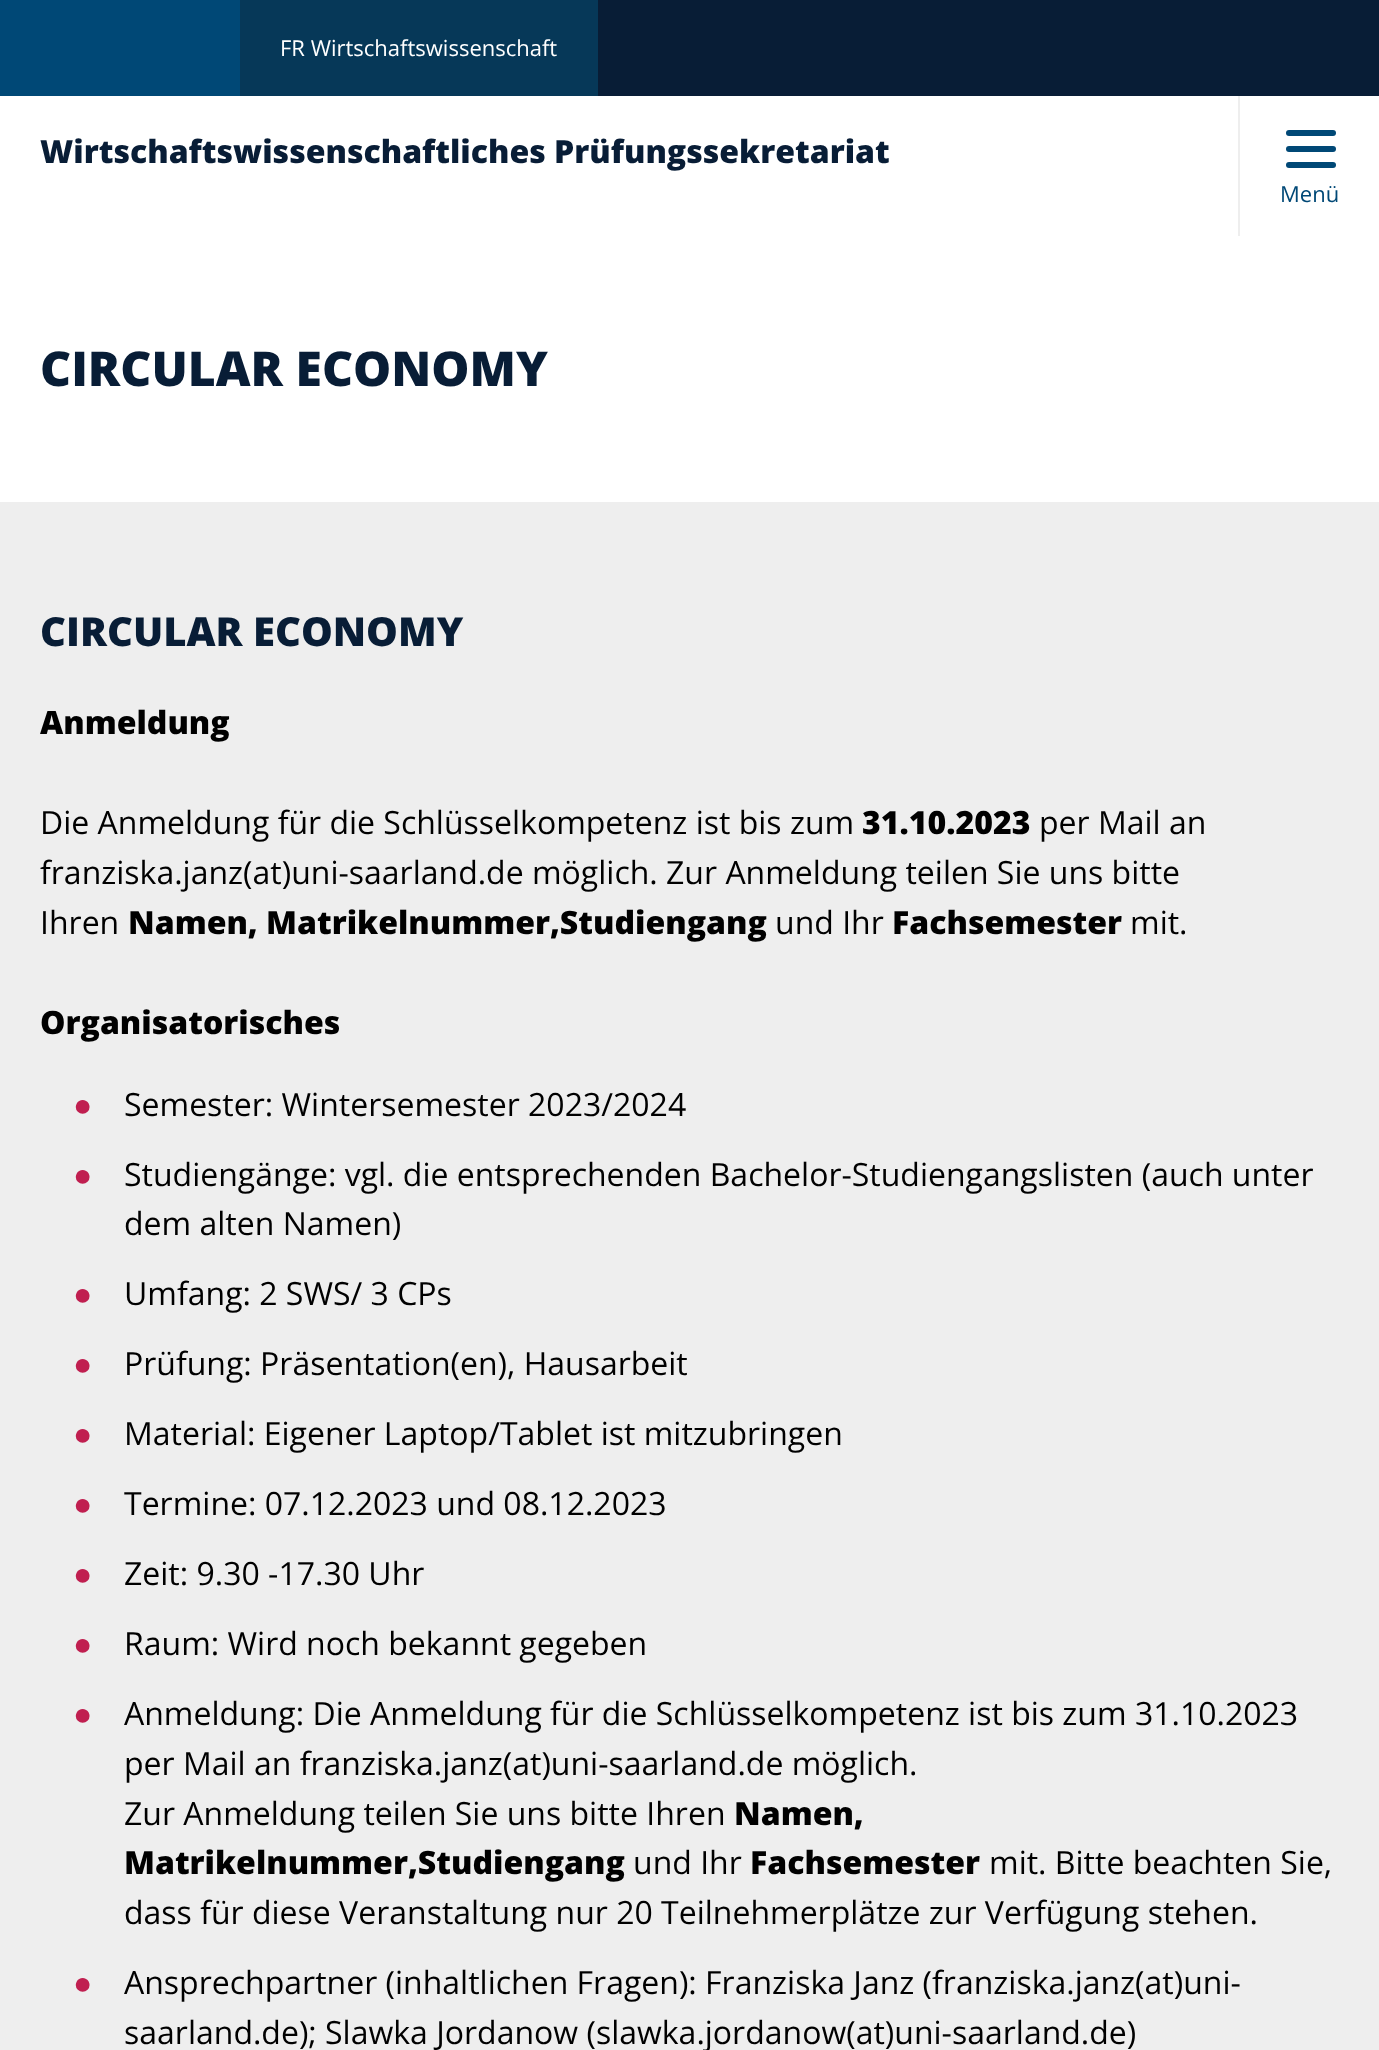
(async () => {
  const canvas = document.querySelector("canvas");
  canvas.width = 1379;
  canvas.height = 2050;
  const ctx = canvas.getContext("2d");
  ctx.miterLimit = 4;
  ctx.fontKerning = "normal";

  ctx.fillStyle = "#ffffff";
  ctx.fillRect(0, 0, 1379, 2050);
  for (const [x, y, w, h, color] of [
    [598, 0, 781, 96, "#081d36"],
    [0, 0, 240, 96, "#004876"],
    [240, 0, 358, 96, "#063858"],
    [1238, 96, 2, 140, "#eeeeee"],
  ]) {
    ctx.fillStyle = color;
    ctx.fillRect(x, y, w, h);
  }
  ctx.fillStyle = "#004876";
  ctx.beginPath();
  ctx.roundRect(1286, 130, 50, 6, 3);
  ctx.fill();
  ctx.beginPath();
  ctx.roundRect(1286, 146, 50, 6, 3);
  ctx.fill();
  ctx.beginPath();
  ctx.roundRect(1286, 162, 50, 6, 3);
  ctx.fill();
  ctx.fillStyle = "#eeeeee";
  ctx.fillRect(0, 502, 1379, 1548);
  ctx.font = "22px Open Sans";
  ctx.fillStyle = "#ffffff";
  ctx.fillText("FR Wirtschaftswissenschaft", 280, 56);
  ctx.font = "800 32px Open Sans";
  ctx.fillStyle = "#081d36";
  ctx.fillText("Wirtschaftswissenschaftliches Prüfungssekretariat", 40, 163);
  ctx.font = "22px Open Sans";
  ctx.fillStyle = "#004876";
  ctx.fillText("Menü", 1280, 202);
  ctx.font = "800 48px Open Sans";
  ctx.fillStyle = "#081d36";
  ctx.fillText("CIRCULAR ECONOMY", 40, 386);
  ctx.font = "800 40px Open Sans";
  ctx.fillText("CIRCULAR ECONOMY", 40, 646);
  ctx.font = "800 32px Open Sans";
  ctx.fillStyle = "#000000";
  ctx.fillText("Anmeldung", 40, 734);
  ctx.font = "32px Open Sans";
  ctx.fillText("Die Anmeldung für die Schlüsselkompetenz ist bis zum", 40, 834);
  ctx.font = "800 32px Open Sans";
  ctx.fillText("31.10.2023", 862, 834);
  ctx.font = "32px Open Sans";
  for (const [text, x, y] of [
    ["per Mail an", 1039, 834],
    ["franziska.janz(at)uni-saarland.de möglich. Zur Anmeldung teilen Sie uns bitte", 40, 884],
    ["Ihren", 40, 934],
  ]) {
    ctx.fillText(text, x, y);
  }
  ctx.font = "800 32px Open Sans";
  ctx.fillText("Namen, Matrikelnummer,Studiengang", 128, 934);
  ctx.font = "32px Open Sans";
  ctx.fillText("und Ihr", 775, 934);
  ctx.font = "800 32px Open Sans";
  ctx.fillText("Fachsemester", 892, 934);
  ctx.font = "32px Open Sans";
  ctx.fillText("mit.", 1130, 934);
  ctx.font = "800 32px Open Sans";
  ctx.fillText("Organisatorisches", 40, 1034);
  ctx.font = "32px Liberation Sans";
  ctx.fillStyle = "#c01f50";
  ctx.fillText("●", 73, 1116);
  ctx.font = "32px Open Sans";
  ctx.fillStyle = "#000000";
  ctx.fillText("Semester: Wintersemester 2023/2024", 124, 1116);
  ctx.font = "32px Liberation Sans";
  ctx.fillStyle = "#c01f50";
  ctx.fillText("●", 73, 1186);
  ctx.font = "32px Open Sans";
  ctx.fillStyle = "#000000";
  ctx.fillText("Studiengänge: vgl. die entsprechenden Bachelor-Studiengangslisten (auch unter", 124, 1186);
  ctx.fillText("dem alten Namen)", 124, 1235);
  ctx.font = "32px Liberation Sans";
  ctx.fillStyle = "#c01f50";
  ctx.fillText("●", 73, 1305);
  ctx.font = "32px Open Sans";
  ctx.fillStyle = "#000000";
  ctx.fillText("Umfang: 2 SWS/ 3 CPs", 124, 1305);
  ctx.font = "32px Liberation Sans";
  ctx.fillStyle = "#c01f50";
  ctx.fillText("●", 73, 1375);
  ctx.font = "32px Open Sans";
  ctx.fillStyle = "#000000";
  ctx.fillText("Prüfung: Präsentation(en), Hausarbeit", 124, 1375);
  ctx.font = "32px Liberation Sans";
  ctx.fillStyle = "#c01f50";
  ctx.fillText("●", 73, 1445);
  ctx.font = "32px Open Sans";
  ctx.fillStyle = "#000000";
  ctx.fillText("Material: Eigener Laptop/Tablet ist mitzubringen", 124, 1445);
  ctx.font = "32px Liberation Sans";
  ctx.fillStyle = "#c01f50";
  ctx.fillText("●", 73, 1515);
  ctx.font = "32px Open Sans";
  ctx.fillStyle = "#000000";
  ctx.fillText("Termine: 07.12.2023 und 08.12.2023", 124, 1515);
  ctx.font = "32px Liberation Sans";
  ctx.fillStyle = "#c01f50";
  ctx.fillText("●", 73, 1585);
  ctx.font = "32px Open Sans";
  ctx.fillStyle = "#000000";
  ctx.fillText("Zeit: 9.30 -17.30 Uhr", 124, 1585);
  ctx.font = "32px Liberation Sans";
  ctx.fillStyle = "#c01f50";
  ctx.fillText("●", 73, 1655);
  ctx.font = "32px Open Sans";
  ctx.fillStyle = "#000000";
  ctx.fillText("Raum: Wird noch bekannt gegeben", 124, 1655);
  ctx.font = "32px Liberation Sans";
  ctx.fillStyle = "#c01f50";
  ctx.fillText("●", 73, 1725);
  ctx.font = "32px Open Sans";
  ctx.fillStyle = "#000000";
  for (const [text, x, y] of [
    ["Anmeldung: Die Anmeldung für die Schlüsselkompetenz ist bis zum 31.10.2023", 124, 1725],
    ["per Mail an franziska.janz(at)uni-saarland.de möglich.", 124, 1775],
    ["Zur Anmeldung teilen Sie uns bitte Ihren", 124, 1825],
  ]) {
    ctx.fillText(text, x, y);
  }
  ctx.font = "800 32px Open Sans";
  ctx.fillText("Namen,", 734, 1825);
  ctx.fillText("Matrikelnummer,Studiengang", 124, 1874);
  ctx.font = "32px Open Sans";
  ctx.fillText("und Ihr", 633, 1874);
  ctx.font = "800 32px Open Sans";
  ctx.fillText("Fachsemester", 750, 1874);
  ctx.font = "32px Open Sans";
  ctx.fillText("mit. Bitte beachten Sie,", 989, 1874);
  ctx.fillText("dass für diese Veranstaltung nur 20 Teilnehmerplätze zur Verfügung stehen.", 124, 1924);
  ctx.font = "32px Liberation Sans";
  ctx.fillStyle = "#c01f50";
  ctx.fillText("●", 73, 1994);
  ctx.font = "32px Open Sans";
  ctx.fillStyle = "#000000";
  ctx.fillText("Ansprechpartner (inhaltlichen Fragen): Franziska Janz (franziska.janz(at)uni-", 124, 1994);
  ctx.fillText("saarland.de); Slawka Jordanow (slawka.jordanow(at)uni-saarland.de)", 124, 2044);
})();
